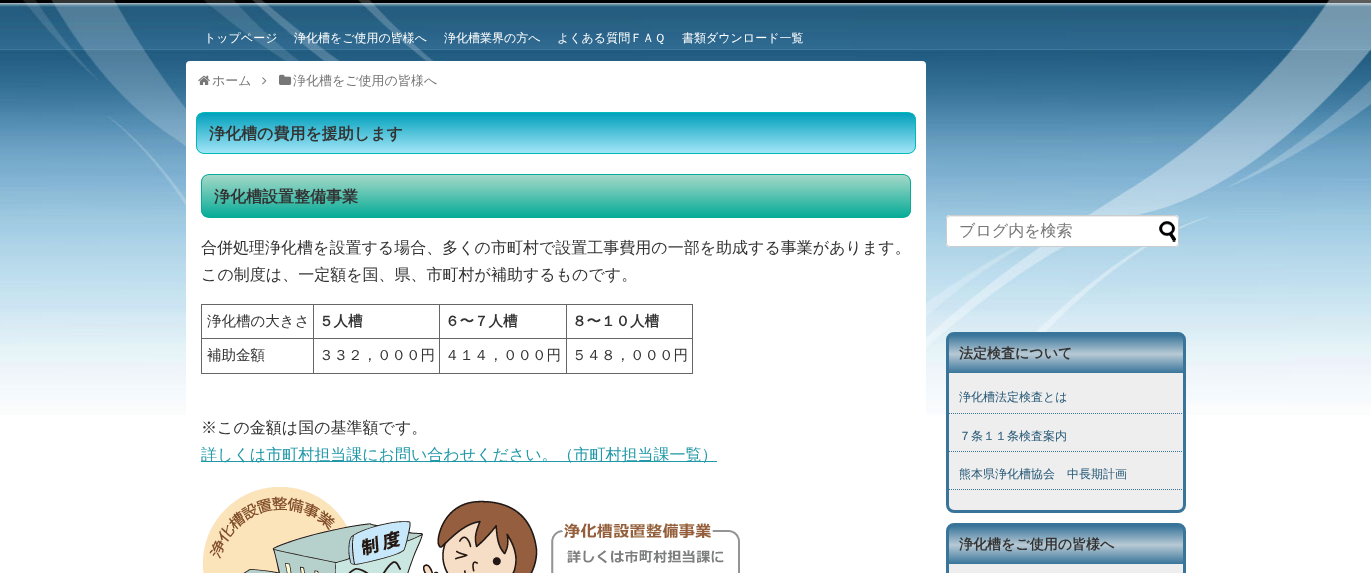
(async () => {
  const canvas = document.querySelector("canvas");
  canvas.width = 1371;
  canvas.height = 573;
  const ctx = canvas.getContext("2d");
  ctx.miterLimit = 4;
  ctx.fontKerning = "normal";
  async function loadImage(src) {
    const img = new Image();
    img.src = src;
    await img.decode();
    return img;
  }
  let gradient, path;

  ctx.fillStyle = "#ffffff";
  ctx.fillRect(0, 0, 1371, 573);
  ctx.drawImage(await loadImage("img/1.png"), 0, 0, 1371, 415);
  ctx.beginPath();
  ctx.roundRect(186, 61, 740, 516, 4);
  ctx.fill();
  ctx.drawImage(await loadImage("img/2.png"), 198, 75, 12, 10);
  ctx.drawImage(await loadImage("img/3.png"), 262, 77, 5, 8);
  ctx.drawImage(await loadImage("img/4.png"), 279, 74, 13, 11);
  ctx.save();
  ctx.beginPath();
  ctx.roundRect(196, 112, 720, 42, 8);
  ctx.clip();
  gradient = ctx.createLinearGradient(556, 153, 556, 113);
  gradient.addColorStop(0, "#a3e5f7");
  gradient.addColorStop(1, "#00a0bc");
  ctx.fillStyle = gradient;
  ctx.fillRect(196, 113, 720, 40);
  ctx.restore();
  ctx.beginPath();
  ctx.roundRect(196.5, 112.5, 719, 41, 7.5);
  ctx.strokeStyle = "#00bab7";
  ctx.stroke();
  ctx.save();
  ctx.beginPath();
  ctx.roundRect(201, 174, 710, 44, 8);
  ctx.clip();
  gradient = ctx.createLinearGradient(556, 217, 556, 175);
  gradient.addColorStop(0, "#06ac97");
  gradient.addColorStop(1, "#a5d8c8");
  ctx.fillStyle = gradient;
  ctx.fillRect(201, 175, 710, 42);
  ctx.restore();
  ctx.beginPath();
  ctx.roundRect(201.5, 174.5, 709, 43, 7.5);
  ctx.strokeStyle = "#06ac97";
  ctx.stroke();
  for (const [x, y, w, h, color] of [
    [566, 304, 127, 1, "#666666"],
    [566, 338, 127, 1, "#666666"],
    [692, 338, 1, 36, "#666666"],
    [566, 373, 127, 1, "#666666"],
    [566, 338, 1, 36, "#666666"],
    [439, 338, 128, 1, "#666666"],
    [566, 304, 1, 35, "#666666"],
    [439, 304, 128, 1, "#666666"],
    [439, 373, 128, 1, "#666666"],
    [439, 338, 1, 36, "#666666"],
    [313, 338, 127, 1, "#666666"],
    [439, 304, 1, 35, "#666666"],
    [313, 304, 127, 1, "#666666"],
    [313, 373, 127, 1, "#666666"],
    [313, 338, 1, 36, "#666666"],
    [201, 338, 113, 1, "#666666"],
    [313, 304, 1, 35, "#666666"],
    [201, 304, 113, 1, "#666666"],
    [201, 373, 113, 1, "#666666"],
    [201, 338, 1, 36, "#666666"],
    [201, 304, 1, 35, "#666666"],
    [692, 304, 1, 35, "#666666"],
    [201, 461, 516, 1, "#2098a8"],
  ]) {
    ctx.fillStyle = color;
    ctx.fillRect(x, y, w, h);
  }
  ctx.drawImage(await loadImage("img/5.png"), 203, 487, 537, 86);
  ctx.fillStyle = "#ffffff";
  ctx.beginPath();
  ctx.roundRect(946, 215, 233, 32, 4);
  ctx.fill();
  ctx.fillStyle = "#ececec";
  path = new Path2D("M950 217H1175C1177 217 1178 218 1178 220C1178 218 1177 216 1175 216H950C948 216 947 218 947 220C947 218 948 217 950 217Z");
  ctx.fill(path);
  ctx.beginPath();
  ctx.roundRect(946.5, 215.5, 232, 31, 3.5);
  ctx.strokeStyle = "#cccccc";
  ctx.stroke();
  ctx.drawImage(await loadImage("img/6.png"), 1159, 221, 17, 21);
  ctx.fillStyle = "#eeeeee";
  ctx.beginPath();
  ctx.roundRect(947.5, 333.5, 237, 178, 6.5);
  ctx.fill();
  ctx.strokeStyle = "#39759a";
  ctx.lineWidth = 3;
  ctx.stroke();
  gradient = ctx.createLinearGradient(1066, 373, 1066, 335);
  gradient.addColorStop(0, "#39759a");
  gradient.addColorStop(0.5, "rgba(57, 117, 154, 0.3)");
  gradient.addColorStop(1, "#39759a");
  ctx.fillStyle = gradient;
  ctx.fillRect(949, 335, 234, 38);
  path = new Path2D("M949 413.5H1183");
  ctx.lineWidth = 1;
  ctx.setLineDash([1, 1]);
  ctx.stroke(path);
  path = new Path2D("M949 451.5H1183");
  ctx.stroke(path);
  path = new Path2D("M949 489.5H1183");
  ctx.stroke(path);
  ctx.fillStyle = "#eeeeee";
  ctx.beginPath();
  ctx.roundRect(947.5, 524.5, 237, 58, 6.5);
  ctx.fill();
  ctx.lineWidth = 3;
  ctx.setLineDash([]);
  ctx.stroke();
  gradient = ctx.createLinearGradient(1066, 564, 1066, 526);
  gradient.addColorStop(0, "#39759a");
  gradient.addColorStop(0.5, "rgba(57, 117, 154, 0.3)");
  gradient.addColorStop(1, "#39759a");
  ctx.fillStyle = gradient;
  ctx.fillRect(949, 526, 234, 38);
  ctx.font = "500 12px WenQuanYi Zen Hei";
  ctx.fillStyle = "#ffffff";
  for (const [text, x, y] of [
    ["トップページ", 204, 42],
    ["浄化槽をご使用の皆様へ", 294, 42],
    ["浄化槽業界の方へ", 444, 42],
    ["よくある質問ＦＡＱ", 557, 42],
    ["書類ダウンロード一覧", 682, 42],
  ]) {
    ctx.fillText(text, x, y);
  }
  ctx.font = "500 13px WenQuanYi Zen Hei";
  ctx.fillStyle = "#777777";
  ctx.fillText("ホーム", 212, 85);
  ctx.fillText("浄化槽をご使用の皆様へ", 293, 85);
  ctx.font = "bold 16px WenQuanYi Zen Hei";
  ctx.fillStyle = "#333333";
  ctx.fillText("浄化槽の費用を援助します", 209, 139);
  ctx.fillText("浄化槽設置整備事業", 214, 202);
  ctx.font = "500 16px WenQuanYi Zen Hei";
  ctx.fillText("合併処理浄化槽を設置する場合、多くの市町村で設置工事費用の一部を助成する事業があります。", 201, 253);
  ctx.fillText("この制度は、一定額を国、県、市町村が補助するものです。", 201, 280);
  ctx.font = "500 14.5px WenQuanYi Zen Hei";
  ctx.fillText("浄化槽の大きさ", 207, 326);
  ctx.font = "bold 14.5px WenQuanYi Zen Hei";
  for (const [text, x, y] of [
    ["５人槽", 319, 326],
    ["６〜７人槽", 445, 326],
    ["８〜１０人槽", 572, 326],
  ]) {
    ctx.fillText(text, x, y);
  }
  ctx.font = "500 14.5px WenQuanYi Zen Hei";
  for (const [text, x, y] of [
    ["補助金額", 207, 360],
    ["３３２，０００円", 319, 360],
    ["４１４，０００円", 445, 360],
    ["５４８，０００円", 572, 360],
  ]) {
    ctx.fillText(text, x, y);
  }
  ctx.font = "500 16px WenQuanYi Zen Hei";
  ctx.fillText("※この金額は国の基準額です。", 201, 433);
  ctx.fillStyle = "#2098a8";
  ctx.fillText("詳しくは市町村担当課にお問い合わせください。（市町村担当課一覧）", 201, 460);
  ctx.fillStyle = "#777777";
  ctx.fillText("ブログ内を検索", 959, 236);
  ctx.font = "bold 14px WenQuanYi Zen Hei";
  ctx.fillStyle = "#333333";
  ctx.fillText("法定検査について", 959, 358);
  ctx.font = "500 12px WenQuanYi Zen Hei";
  ctx.fillStyle = "#265877";
  for (const [text, x, y] of [
    ["浄化槽法定検査とは", 959, 401],
    ["７条１１条検査案内", 959, 440],
    ["熊本県浄化槽協会　中長期計画", 959, 478],
  ]) {
    ctx.fillText(text, x, y);
  }
  ctx.font = "bold 14px WenQuanYi Zen Hei";
  ctx.fillStyle = "#333333";
  ctx.fillText("浄化槽をご使用の皆様へ", 959, 549);
})();
